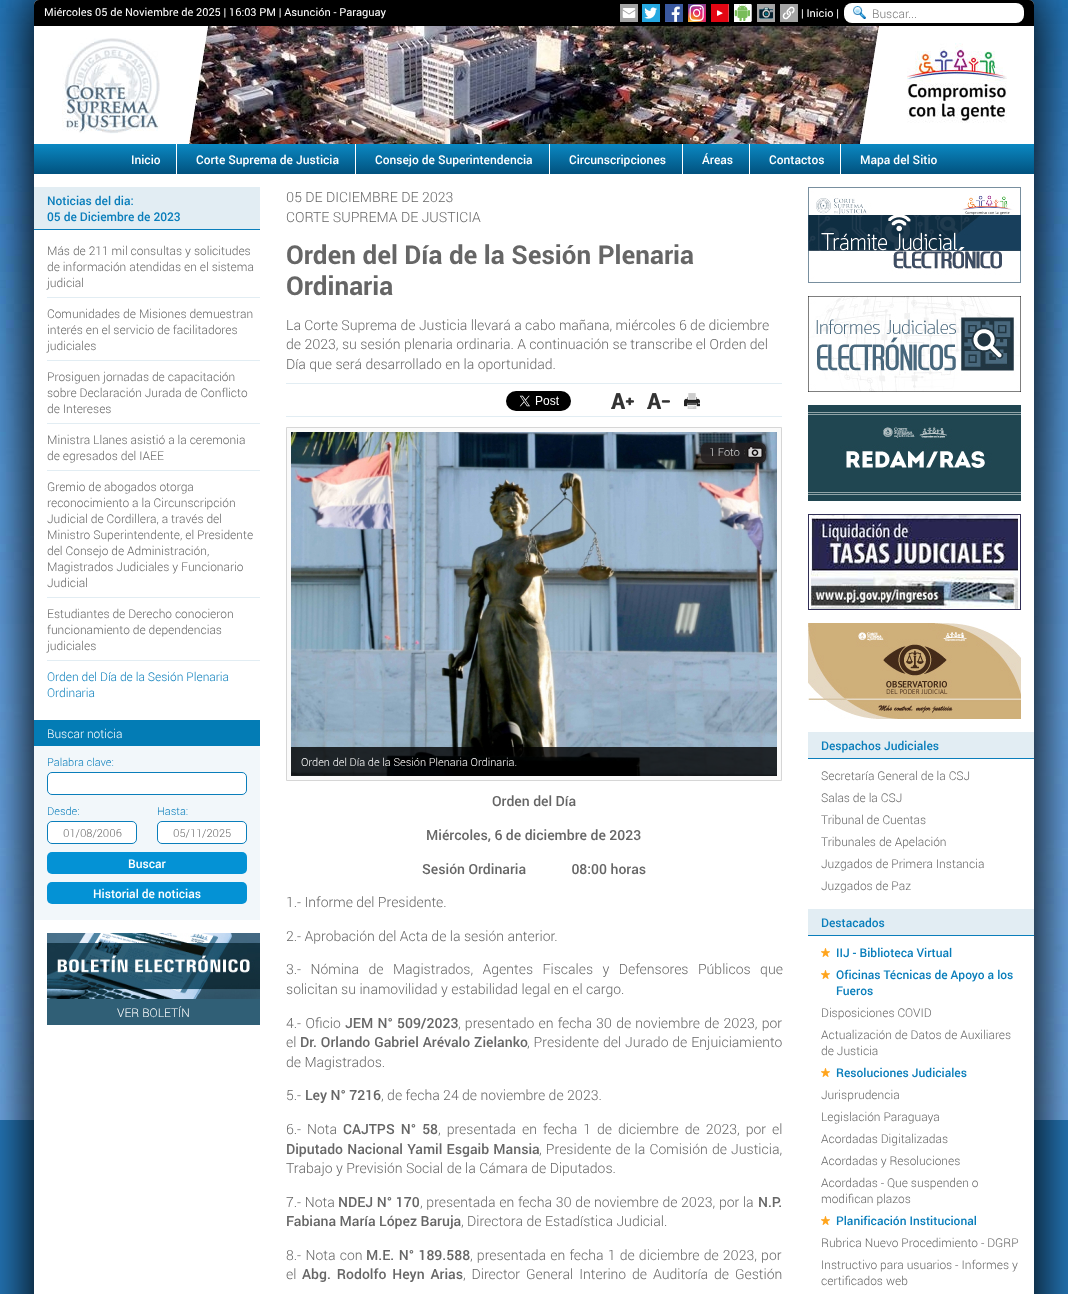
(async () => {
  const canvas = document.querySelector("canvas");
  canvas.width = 1068;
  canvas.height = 1294;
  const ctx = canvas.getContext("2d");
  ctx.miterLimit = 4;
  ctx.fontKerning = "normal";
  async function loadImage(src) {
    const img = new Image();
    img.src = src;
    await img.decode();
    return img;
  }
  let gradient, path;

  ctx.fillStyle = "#2578ba";
  ctx.fillRect(0, 0, 1068, 1294);
  ctx.drawImage(await loadImage("img/1.png"), 0, 0, 1068, 1120);
  ctx.fillStyle = "#000000";
  ctx.filter = "blur(25px)";
  ctx.beginPath();
  ctx.roundRect(29, -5, 1010, 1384, 10);
  ctx.fill();
  ctx.filter = "none";
  ctx.fillStyle = "#ffffff";
  ctx.beginPath();
  ctx.roundRect(34, 0, 1000, 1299, 5);
  ctx.fill();
  ctx.fillStyle = "#000000";
  ctx.beginPath();
  ctx.roundRect(34, 0, 1000, 26, [5, 5, 0, 0]);
  ctx.fill();
  ctx.drawImage(await loadImage("img/2.png"), 620, 4, 18, 18);
  ctx.drawImage(await loadImage("img/3.png"), 642, 4, 18, 18);
  ctx.drawImage(await loadImage("img/4.png"), 665, 4, 18, 18);
  ctx.drawImage(await loadImage("img/5.png"), 688, 4, 18, 18);
  ctx.drawImage(await loadImage("img/6.png"), 711, 4, 18, 18);
  ctx.drawImage(await loadImage("img/7.png"), 734, 4, 18, 18);
  ctx.drawImage(await loadImage("img/8.png"), 757, 4, 18, 18);
  ctx.drawImage(await loadImage("img/9.png"), 780, 4, 18, 18);
  ctx.fillStyle = "#ffffff";
  ctx.beginPath();
  ctx.roundRect(844, 3, 180, 20, 8);
  ctx.fill();
  ctx.drawImage(await loadImage("img/10.png"), 853, 6, 13, 13);
  ctx.drawImage(await loadImage("img/11.png"), 62, 38, 98, 96);
  ctx.drawImage(await loadImage("img/12.png"), 189, 26, 690, 118);
  ctx.drawImage(await loadImage("img/13.png"), 907, 43, 100, 80);
  gradient = ctx.createLinearGradient(534, 144, 534, 174);
  gradient.addColorStop(0, "#0b88c2");
  gradient.addColorStop(1, "#01527f");
  ctx.fillStyle = gradient;
  ctx.fillRect(34, 144, 1000, 30);
  for (const [x, y, w, h, color] of [
    [176, 144, 1, 30, "#ffffff"],
    [355, 144, 1, 30, "#ffffff"],
    [549, 144, 1, 30, "#ffffff"],
    [682, 144, 1, 30, "#ffffff"],
    [749, 144, 1, 30, "#ffffff"],
    [840, 144, 1, 30, "#ffffff"],
    [34, 187, 226, 42, "#e2edf3"],
    [34, 229, 226, 1, "#0a7ebb"],
    [47, 297, 213, 1, "#e2edf3"],
    [47, 360, 213, 1, "#e2edf3"],
    [47, 423, 213, 1, "#e2edf3"],
    [47, 470, 213, 1, "#e2edf3"],
    [47, 597, 213, 1, "#e2edf3"],
    [47, 660, 213, 1, "#e2edf3"],
    [34, 746, 226, 174, "#f2f7fa"],
    [34, 720, 226, 26, "#037cb5"],
  ]) {
    ctx.fillStyle = color;
    ctx.fillRect(x, y, w, h);
  }
  ctx.fillStyle = "#ffffff";
  ctx.beginPath();
  ctx.roundRect(47.5, 772.5, 199, 22, 4.5);
  ctx.fill();
  ctx.strokeStyle = "#0a7ebb";
  ctx.stroke();
  ctx.beginPath();
  ctx.roundRect(47.5, 821.5, 89, 22, 4.5);
  ctx.fill();
  ctx.stroke();
  ctx.beginPath();
  ctx.roundRect(157.5, 821.5, 89, 22, 4.5);
  ctx.fill();
  ctx.stroke();
  ctx.fillStyle = "#0492d5";
  ctx.beginPath();
  ctx.roundRect(47, 852, 200, 22, 5);
  ctx.fill();
  ctx.beginPath();
  ctx.roundRect(47, 882, 200, 22, 5);
  ctx.fill();
  ctx.drawImage(await loadImage("img/14.png"), 47, 933, 213, 66);
  for (const [x, y, w, h, color] of [
    [47, 999, 213, 26, "#305f76"],
    [286, 383, 496, 1, "#e2edf3"],
    [286, 416, 496, 1, "#e2edf3"],
  ]) {
    ctx.fillStyle = color;
    ctx.fillRect(x, y, w, h);
  }
  ctx.drawImage(await loadImage("img/15.png"), 506, 391, 65, 20);
  ctx.drawImage(await loadImage("img/16.png"), 611, 393, 23, 16);
  ctx.drawImage(await loadImage("img/17.png"), 647, 393, 23, 16);
  ctx.drawImage(await loadImage("img/18.png"), 684, 393, 16, 16);
  ctx.fillStyle = "#fafafa";
  ctx.beginPath();
  ctx.rect(286.5, 427.5, 495, 353);
  ctx.fill();
  ctx.strokeStyle = "#d6d6d6";
  ctx.stroke();
  ctx.drawImage(await loadImage("img/19.png"), 291, 432, 486, 344);
  ctx.save();
  path = new Path2D("M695 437H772V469H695ZM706 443H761C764 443 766 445 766 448V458C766 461 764 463 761 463H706C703 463 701 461 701 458V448C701 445 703 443 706 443Z");
  ctx.clip(path, "evenodd");
  ctx.fillStyle = "rgba(35, 31, 32, 0.9)";
  ctx.filter = "blur(1.5px)";
  ctx.beginPath();
  ctx.roundRect(701, 443, 65, 20, 5);
  ctx.fill();
  ctx.filter = "none";
  ctx.restore();
  ctx.fillStyle = "rgba(35, 31, 32, 0.9)";
  ctx.beginPath();
  ctx.roundRect(701, 443, 65, 20, 5);
  ctx.fill();
  ctx.save();
  path = new Path2D("M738 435H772V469H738ZM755 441C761 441 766 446 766 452C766 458 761 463 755 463C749 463 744 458 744 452C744 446 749 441 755 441Z");
  ctx.clip(path, "evenodd");
  ctx.fillStyle = "rgba(35, 31, 32, 0.81)";
  ctx.filter = "blur(1.5px)";
  ctx.beginPath();
  ctx.roundRect(744, 441, 22, 22, 11);
  ctx.fill();
  ctx.filter = "none";
  ctx.restore();
  ctx.drawImage(await loadImage("img/20.png"), 744, 441, 22, 22);
  ctx.fillStyle = "rgba(0, 0, 0, 0.8)";
  ctx.fillRect(291, 747, 486, 29);
  ctx.drawImage(await loadImage("img/21.png"), 808, 187, 213, 96);
  ctx.drawImage(await loadImage("img/22.png"), 808, 296, 213, 96);
  ctx.drawImage(await loadImage("img/23.png"), 808, 405, 213, 96);
  ctx.drawImage(await loadImage("img/24.png"), 808, 514, 213, 96);
  ctx.drawImage(await loadImage("img/25.png"), 808, 623, 213, 96);
  for (const [x, y, w, h, color] of [
    [808, 732, 226, 26, "#e2edf3"],
    [808, 758, 226, 1, "#0a7ebb"],
    [808, 909, 226, 26, "#e2edf3"],
    [808, 935, 226, 1, "#0a7ebb"],
  ]) {
    ctx.fillStyle = color;
    ctx.fillRect(x, y, w, h);
  }
  ctx.drawImage(await loadImage("img/26.png"), 821, 948, 9, 9);
  ctx.drawImage(await loadImage("img/26.png"), 821, 970, 9, 9);
  ctx.drawImage(await loadImage("img/26.png"), 821, 1068, 9, 9);
  ctx.drawImage(await loadImage("img/26.png"), 821, 1216, 9, 9);
  ctx.font = "11px Roboto";
  ctx.fillStyle = "#ffffff";
  ctx.fillText("Miércoles 05 de Noviembre de 2025 | 16:03 PM | Asunción - Paraguay", 44, 16);
  ctx.fillText("| Inicio |", 801, 17);
  ctx.font = "300 12px Roboto";
  ctx.fillStyle = "#757575";
  ctx.fillText("Buscar...", 872, 18);
  ctx.font = "500 12px Roboto";
  ctx.fillStyle = "#ffffff";
  for (const [text, x, y] of [
    ["Inicio", 131, 164],
    ["Corte Suprema de Justicia", 196, 164],
    ["Consejo de Superintendencia", 375, 164],
    ["Circunscripciones", 569, 164],
    ["Áreas", 702, 164],
    ["Contactos", 769, 164],
    ["Mapa del Sitio", 860, 164],
  ]) {
    ctx.fillText(text, x, y);
  }
  ctx.fillStyle = "#0a7ebb";
  ctx.fillText("Noticias del dia:", 47, 205);
  ctx.fillText("05 de Diciembre de 2023", 47, 221);
  ctx.font = "300 12px Roboto";
  ctx.fillStyle = "#666666";
  for (const [text, x, y] of [
    ["Más de 211 mil consultas y solicitudes", 47, 255],
    ["de información atendidas en el sistema", 47, 271],
    ["judicial", 47, 287],
    ["Comunidades de Misiones demuestran", 47, 318],
    ["interés en el servicio de facilitadores", 47, 334],
    ["judiciales", 47, 350],
    ["Prosiguen jornadas de capacitación", 47, 381],
    ["sobre Declaración Jurada de Conflicto", 47, 397],
    ["de Intereses", 47, 413],
    ["Ministra Llanes asistió a la ceremonia", 47, 444],
    ["de egresados del IAEE", 47, 460],
    ["Gremio de abogados otorga", 47, 491],
    ["reconocimiento a la Circunscripción", 47, 507],
    ["Judicial de Cordillera, a través del", 47, 523],
    ["Ministro Superintendente, el Presidente", 47, 539],
    ["del Consejo de Administración,", 47, 555],
    ["Magistrados Judiciales y Funcionario", 47, 571],
    ["Judicial", 47, 587],
    ["Estudiantes de Derecho conocieron", 47, 618],
    ["funcionamiento de dependencias", 47, 634],
    ["judiciales", 47, 650],
  ]) {
    ctx.fillText(text, x, y);
  }
  ctx.fillStyle = "#0a7ebb";
  ctx.fillText("Orden del Día de la Sesión Plenaria", 47, 681);
  ctx.fillText("Ordinaria", 47, 697);
  ctx.fillStyle = "#ffffff";
  ctx.fillText("Buscar noticia", 47, 738);
  ctx.font = "300 11px Roboto";
  ctx.fillStyle = "#0a7ebb";
  ctx.fillText("Palabra clave:", 47, 766);
  ctx.fillText("Desde:", 47, 815);
  ctx.fillStyle = "#666666";
  ctx.fillText("01/08/2006", 63, 837);
  ctx.fillStyle = "#0a7ebb";
  ctx.fillText("Hasta:", 157, 815);
  ctx.fillStyle = "#666666";
  ctx.fillText("05/11/2025", 173, 837);
  ctx.font = "500 12px Roboto";
  ctx.fillStyle = "#ffffff";
  ctx.fillText("Buscar", 128, 868);
  ctx.fillText("Historial de noticias", 93, 898);
  ctx.font = "300 12px Roboto";
  ctx.fillText("VER BOLETÍN", 117, 1017);
  ctx.font = "300 14px Roboto";
  ctx.fillStyle = "#666666";
  ctx.fillText("05 DE DICIEMBRE DE 2023", 286, 202);
  ctx.fillText("CORTE SUPREMA DE JUSTICIA", 286, 222);
  ctx.font = "bold 26px Roboto";
  ctx.fillText("Orden del Día de la Sesión Plenaria", 286, 264);
  ctx.fillText("Ordinaria", 286, 295);
  ctx.font = "300 14px Roboto";
  for (const [text, x, y] of [
    ["La Corte Suprema de Justicia llevará a cabo mañana, miércoles 6 de diciembre", 286, 330],
    ["de 2023, su sesión plenaria ordinaria. A continuación se transcribe el Orden del", 286, 349],
    ["Día que será desarrollado en la oportunidad.", 286, 369],
  ]) {
    ctx.fillText(text, x, y);
  }
  ctx.font = "300 11px Roboto";
  ctx.fillStyle = "#dadada";
  ctx.fillText("1 Foto", 709, 456);
  ctx.fillStyle = "#ffffff";
  ctx.fillText("Orden del Día de la Sesión Plenaria Ordinaria.", 301, 766);
  ctx.font = "500 14px Roboto";
  ctx.fillStyle = "#666666";
  for (const [text, x, y] of [
    ["Orden del Día", 492, 806],
    ["Miércoles, 6 de diciembre de 2023", 426, 840],
    ["Sesión Ordinaria             08:00 horas", 422, 874],
  ]) {
    ctx.fillText(text, x, y);
  }
  ctx.font = "300 14px Roboto";
  ctx.fillText("1.- Informe del Presidente.", 286, 907);
  ctx.fillText("2.- Aprobación del Acta de la sesión anterior.", 286, 941);
  ctx.wordSpacing = "6px";
  ctx.fillText("3.- Nómina de Magistrados, Agentes Fiscales y Defensores Públicos que", 286, 974);
  ctx.wordSpacing = "0px";
  ctx.fillText("solicitan su inamovilidad y estabilidad legal en el cargo.", 286, 994);
  ctx.wordSpacing = "1px";
  ctx.fillText("4.- Oficio", 286, 1028);
  ctx.wordSpacing = "0.75px";
  ctx.font = "500 14px Roboto";
  ctx.fillText("JEM N° 509/2023", 345, 1028);
  ctx.font = "300 14px Roboto";
  ctx.fillText(", presentado en fecha 30 de noviembre de 2023, por", 458, 1028);
  ctx.wordSpacing = "0px";
  ctx.fillText("el", 286, 1047);
  ctx.wordSpacing = "0.5px";
  ctx.font = "500 14px Roboto";
  ctx.fillText("Dr. Orlando Gabriel Arévalo Zielanko", 300, 1047);
  ctx.font = "300 14px Roboto";
  ctx.fillText(", Presidente del Jurado de Enjuiciamiento", 527, 1047);
  ctx.wordSpacing = "0px";
  ctx.fillText("de Magistrados.", 286, 1067);
  ctx.fillText("5.-", 286, 1100);
  ctx.font = "500 14px Roboto";
  ctx.fillText("Ley N° 7216", 305, 1100);
  ctx.font = "300 14px Roboto";
  ctx.fillText(", de fecha 24 de noviembre de 2023.", 381, 1100);
  ctx.wordSpacing = "2.6px";
  ctx.fillText("6.- Nota", 286, 1134);
  ctx.font = "500 14px Roboto";
  ctx.fillText("CAJTPS N° 58", 343, 1134);
  ctx.font = "300 14px Roboto";
  ctx.fillText(", presentada en fecha 1 de diciembre de 2023, por el", 438, 1134);
  ctx.wordSpacing = "0.75px";
  ctx.font = "500 14px Roboto";
  ctx.fillText("Diputado Nacional Yamil Esgaib Mansia", 286, 1154);
  ctx.font = "300 14px Roboto";
  ctx.fillText(", Presidente de la Comisión de Justicia,", 539, 1154);
  ctx.wordSpacing = "0px";
  ctx.fillText("Trabajo y Previsión Social de la Cámara de Diputados.", 286, 1173);
  ctx.wordSpacing = "0.25px";
  ctx.fillText("7.- Nota", 286, 1207);
  ctx.font = "500 14px Roboto";
  ctx.fillText("NDEJ N° 170", 338, 1207);
  ctx.font = "300 14px Roboto";
  ctx.fillText(", presentada en fecha 30 de noviembre de 2023, por la", 420, 1207);
  ctx.wordSpacing = "0px";
  ctx.font = "500 14px Roboto";
  ctx.fillText("N.P.", 758, 1207);
  ctx.fillText("Fabiana María López Baruja", 286, 1226);
  ctx.font = "300 14px Roboto";
  ctx.fillText(", Directora de Estadística Judicial.", 461, 1226);
  ctx.wordSpacing = "1px";
  ctx.fillText("8.- Nota con", 286, 1260);
  ctx.font = "500 14px Roboto";
  ctx.fillText("M.E. N° 189.588", 366, 1260);
  ctx.wordSpacing = "0.75px";
  ctx.font = "300 14px Roboto";
  ctx.fillText(", presentada en fecha 1 de diciembre de 2023, por", 470, 1260);
  ctx.wordSpacing = "0px";
  ctx.fillText("el", 286, 1279);
  ctx.wordSpacing = "2.5px";
  ctx.font = "500 14px Roboto";
  ctx.fillText("Abg. Rodolfo Heyn Arias", 302, 1279);
  ctx.font = "300 14px Roboto";
  ctx.fillText(", Director General Interino de Auditoría de Gestión", 463, 1279);
  ctx.wordSpacing = "0px";
  ctx.font = "500 12px Roboto";
  ctx.fillStyle = "#0a7ebb";
  ctx.fillText("Despachos Judiciales", 821, 750);
  ctx.font = "300 12px Roboto";
  ctx.fillStyle = "#666666";
  for (const [text, x, y] of [
    ["Secretaría General de la CSJ", 821, 780],
    ["Salas de la CSJ", 821, 802],
    ["Tribunal de Cuentas", 821, 824],
    ["Tribunales de Apelación", 821, 846],
    ["Juzgados de Primera Instancia", 821, 868],
    ["Juzgados de Paz", 821, 890],
  ]) {
    ctx.fillText(text, x, y);
  }
  ctx.font = "500 12px Roboto";
  ctx.fillStyle = "#0a7ebb";
  for (const [text, x, y] of [
    ["Destacados", 821, 927],
    ["IIJ - Biblioteca Virtual", 836, 957],
    ["Oficinas Técnicas de Apoyo a los", 836, 979],
    ["Fueros", 836, 995],
  ]) {
    ctx.fillText(text, x, y);
  }
  ctx.font = "300 12px Roboto";
  ctx.fillStyle = "#666666";
  for (const [text, x, y] of [
    ["Disposiciones COVID", 821, 1017],
    ["Actualización de Datos de Auxiliares", 821, 1039],
    ["de Justicia", 821, 1055],
  ]) {
    ctx.fillText(text, x, y);
  }
  ctx.font = "500 12px Roboto";
  ctx.fillStyle = "#0a7ebb";
  ctx.fillText("Resoluciones Judiciales", 836, 1077);
  ctx.font = "300 12px Roboto";
  ctx.fillStyle = "#666666";
  for (const [text, x, y] of [
    ["Jurisprudencia", 821, 1099],
    ["Legislación Paraguaya", 821, 1121],
    ["Acordadas Digitalizadas", 821, 1143],
    ["Acordadas y Resoluciones", 821, 1165],
    ["Acordadas - Que suspenden o", 821, 1187],
    ["modifican plazos", 821, 1203],
  ]) {
    ctx.fillText(text, x, y);
  }
  ctx.font = "500 12px Roboto";
  ctx.fillStyle = "#0a7ebb";
  ctx.fillText("Planificación Institucional", 836, 1225);
  ctx.font = "300 12px Roboto";
  ctx.fillStyle = "#666666";
  for (const [text, x, y] of [
    ["Rubrica Nuevo Procedimiento - DGRP", 821, 1247],
    ["Instructivo para usuarios - Informes y", 821, 1269],
    ["certificados web", 821, 1285],
  ]) {
    ctx.fillText(text, x, y);
  }
})();
